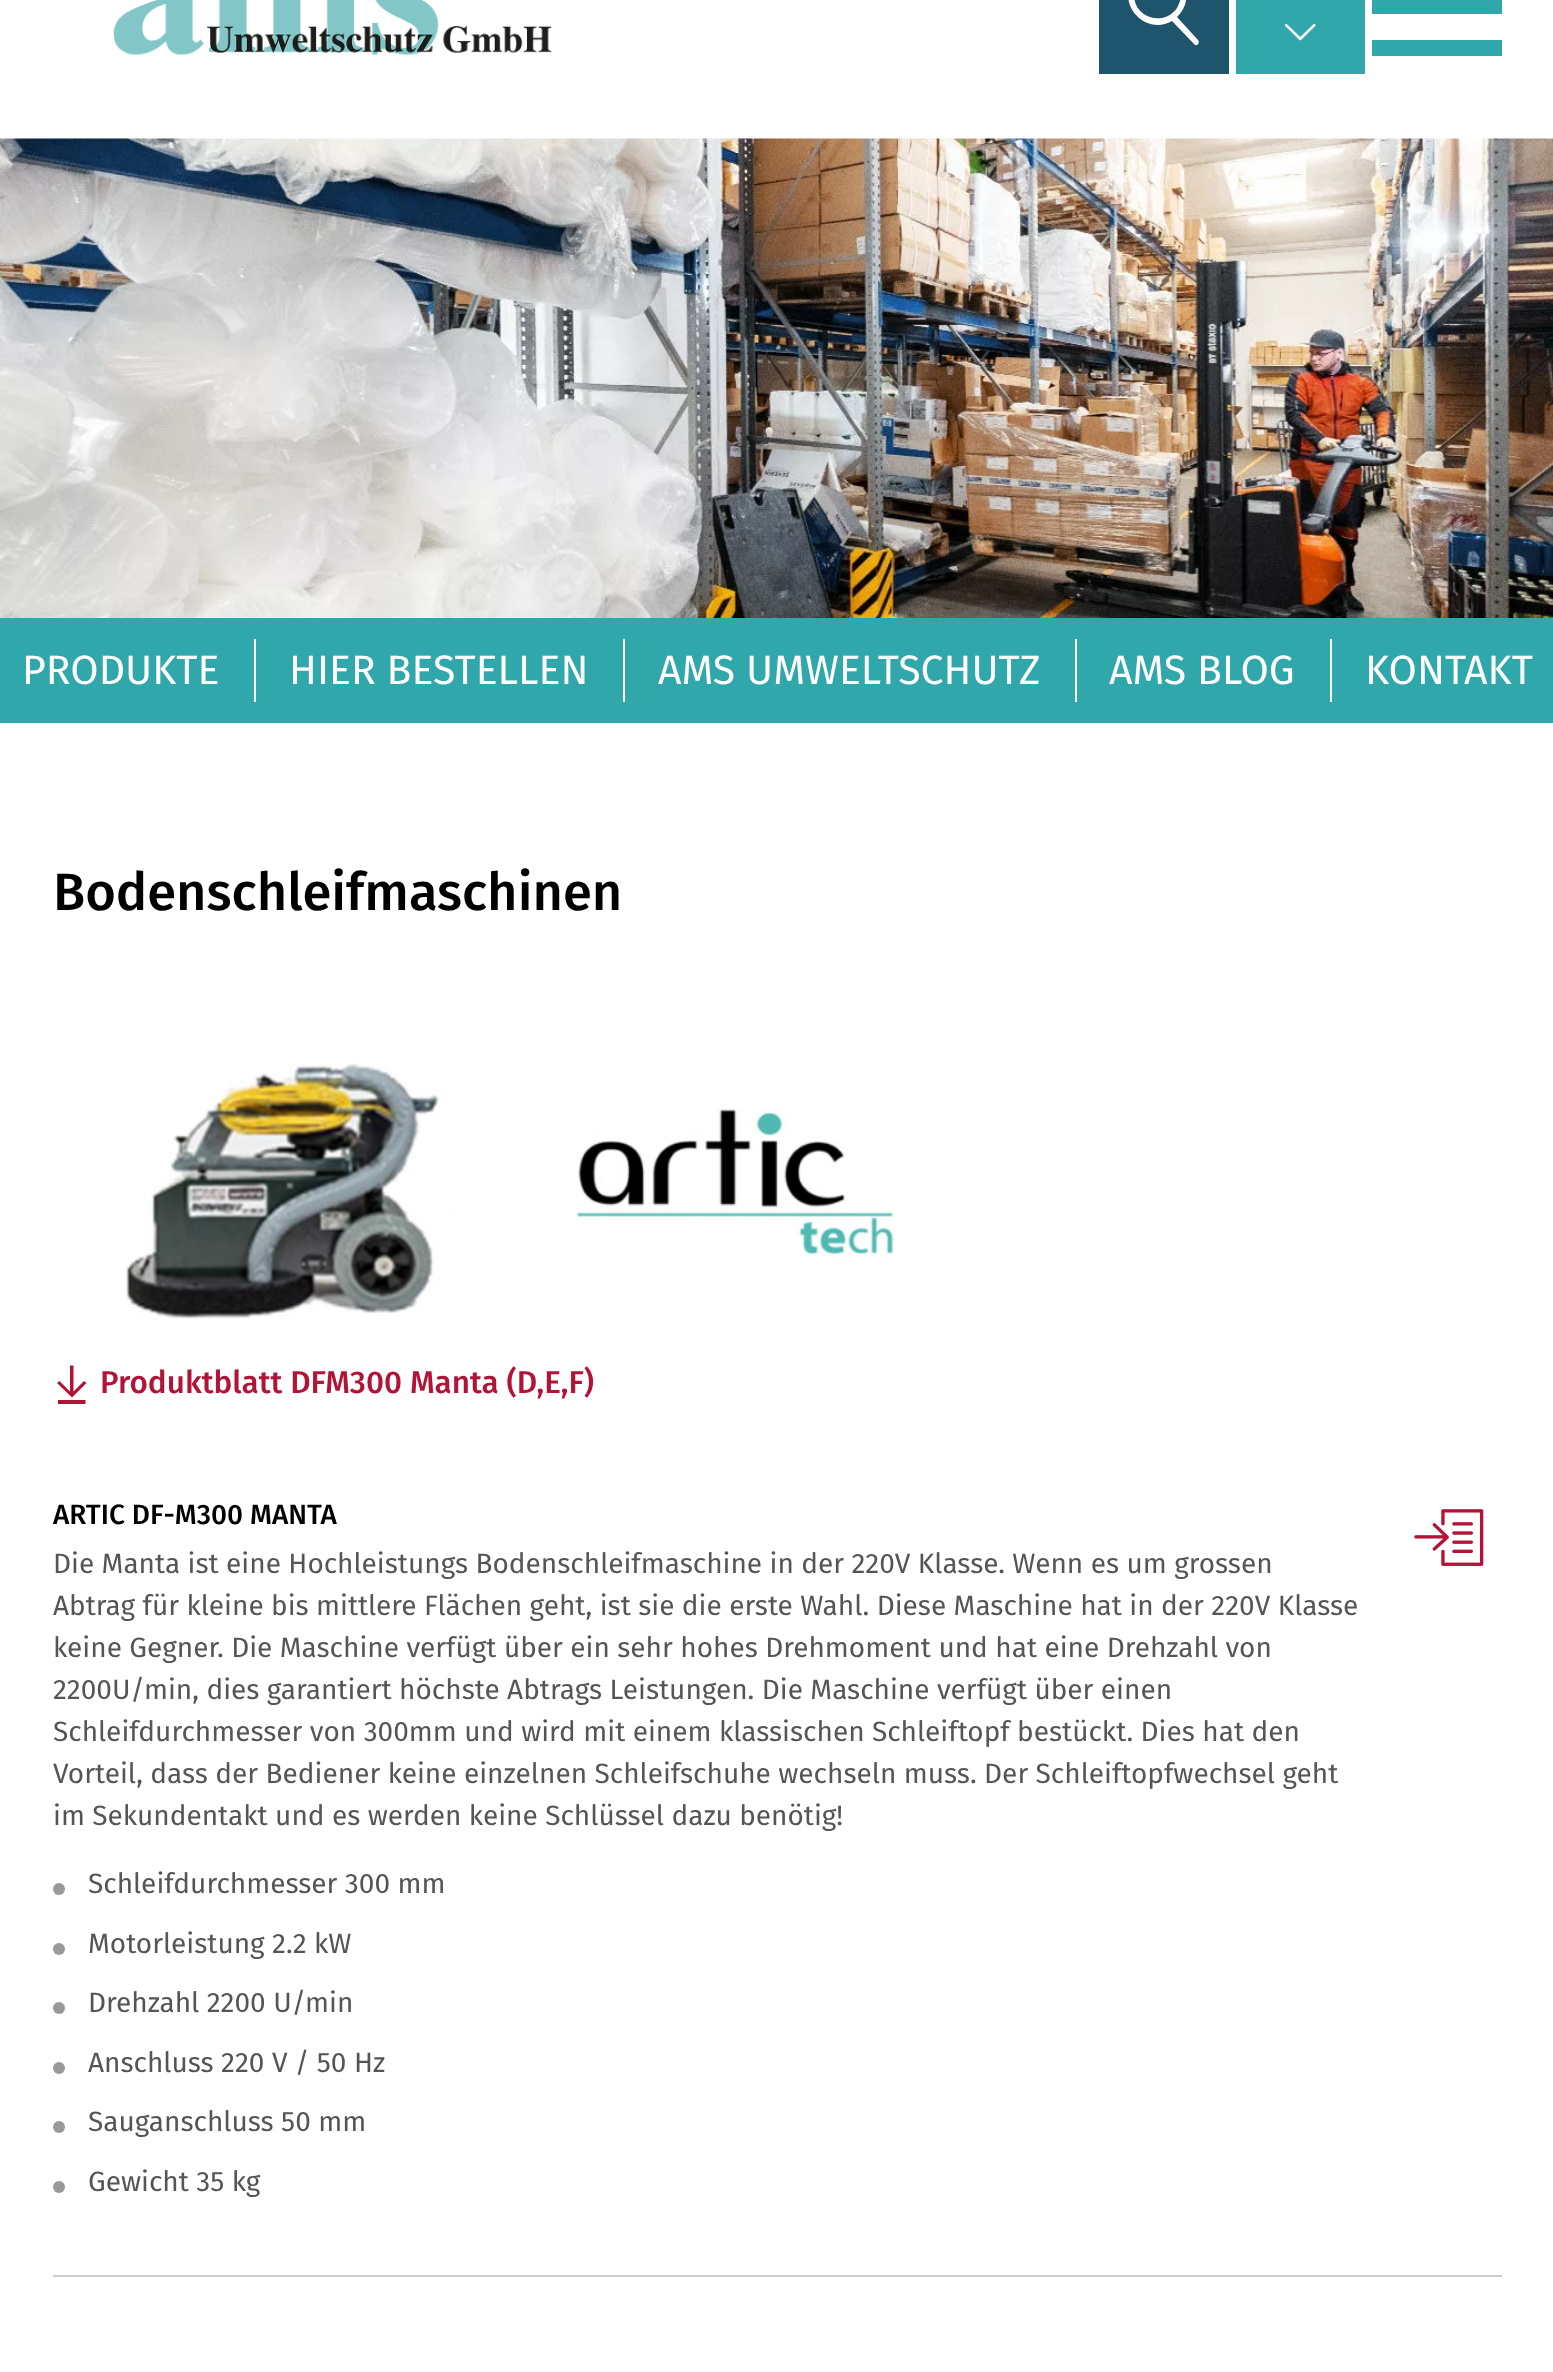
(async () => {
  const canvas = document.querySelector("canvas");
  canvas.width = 1553;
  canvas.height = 2372;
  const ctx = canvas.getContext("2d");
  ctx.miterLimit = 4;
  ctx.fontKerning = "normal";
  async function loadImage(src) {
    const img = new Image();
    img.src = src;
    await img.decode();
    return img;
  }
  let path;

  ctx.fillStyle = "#ffffff";
  ctx.fillRect(0, 0, 1553, 2372);
  ctx.drawImage(await loadImage("img/1.png"), 113, 0, 439, 55);
  ctx.fillStyle = "#1f546d";
  ctx.fillRect(1099, 0, 130, 74);
  ctx.fillStyle = "#ffffff";
  path = new Path2D("M1198 40L1177 17C1190 5 1190-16 1176-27C1169-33 1159-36 1150-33C1143-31 1137-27 1133-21C1116 5 1146 36 1172 21L1195 45C1198 46 1200 42 1198 40ZM1134-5C1134-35 1181-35 1181-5C1181 0 1179 4 1177 8C1164 27 1134 18 1134-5Z");
  ctx.fill(path);
  ctx.fillStyle = "#2fa7ab";
  ctx.fillRect(1236, 0, 129, 74);
  ctx.drawImage(await loadImage("img/2.png"), 1284, 23, 32, 18);
  ctx.fillRect(1372, 0, 130, 14);
  ctx.fillRect(1372, 40, 130, 16);
  ctx.drawImage(await loadImage("img/3.png"), 0, 138, 1553, 480);
  for (const [x, y, w, h, color] of [
    [0, 618, 1553, 105, "#2fa7ab"],
    [254, 639, 2, 63, "#ffffff"],
    [623, 639, 2, 63, "#ffffff"],
    [1075, 639, 2, 63, "#ffffff"],
    [1330, 639, 2, 63, "#ffffff"],
  ]) {
    ctx.fillStyle = color;
    ctx.fillRect(x, y, w, h);
  }
  ctx.drawImage(await loadImage("img/4.png"), 126, 1063, 770, 256);
  ctx.fillStyle = "#b21337";
  path = new Path2D("M86.5 1383L84 1381L73.5 1391.5V1365.5H70V1391.5L59.5 1381L57 1383L72 1397.5ZM58 1400H85.5V1404H58Z");
  ctx.fill(path);
  ctx.fillStyle = "#cccccc";
  ctx.fillRect(53, 2275, 1449, 2);
  ctx.drawImage(await loadImage("img/5.png"), 1414, 1509, 70, 57);
  ctx.fillStyle = "#999999";
  ctx.beginPath();
  ctx.arc(59, 1889, 6, 0, Math.PI * 2);
  ctx.fill();
  ctx.beginPath();
  ctx.arc(59, 1949, 6, 0, Math.PI * 2);
  ctx.fill();
  ctx.beginPath();
  ctx.arc(59, 2008, 6, 0, Math.PI * 2);
  ctx.fill();
  ctx.beginPath();
  ctx.arc(59, 2068, 6, 0, Math.PI * 2);
  ctx.fill();
  ctx.beginPath();
  ctx.arc(59, 2127, 6, 0, Math.PI * 2);
  ctx.fill();
  ctx.beginPath();
  ctx.arc(59, 2187, 6, 0, Math.PI * 2);
  ctx.fill();
  ctx.font = "41px Fira Sans";
  ctx.fillStyle = "#ffffff";
  for (const [text, x, y] of [
    ["PRODUKTE", 22, 684],
    ["HIER BESTELLEN", 289, 684],
    ["AMS UMWELTSCHUTZ", 658, 684],
    ["AMS BLOG", 1109, 684],
    ["KONTAKT", 1365, 684],
  ]) {
    ctx.fillText(text, x, y);
  }
  ctx.font = "500 52.5px Fira Sans";
  ctx.fillStyle = "#000000";
  ctx.fillText("Bodenschleifmaschinen", 53, 910);
  ctx.font = "500 31.5px Fira Sans";
  ctx.fillStyle = "#b21337";
  ctx.fillText("Produktblatt DFM300 Manta (D,E,F)", 100, 1393);
  ctx.font = "500 28px Fira Sans";
  ctx.fillStyle = "#000000";
  ctx.fillText("ARTIC DF-M300 MANTA", 53, 1524);
  ctx.font = "28px Fira Sans";
  ctx.fillStyle = "#555555";
  for (const [text, x, y] of [
    ["Die Manta ist eine Hochleistungs Bodenschleifmaschine in der 220V Klasse. Wenn es um grossen", 53, 1573],
    ["Abtrag für kleine bis mittlere Flächen geht, ist sie die erste Wahl. Diese Maschine hat in der 220V Klasse", 53, 1615],
    ["keine Gegner. Die Maschine verfügt über ein sehr hohes Drehmoment und hat eine Drehzahl von", 53, 1657],
    ["2200U/min, dies garantiert höchste Abtrags Leistungen. Die Maschine verfügt über einen", 53, 1699],
    ["Schleifdurchmesser von 300mm und wird mit einem klassischen Schleiftopf bestückt. Dies hat den", 53, 1741],
    ["Vorteil, dass der Bediener keine einzelnen Schleifschuhe wechseln muss. Der Schleiftopfwechsel geht", 53, 1783],
    ["im Sekundentakt und es werden keine Schlüssel dazu benötig!", 53, 1825],
    ["Schleifdurchmesser 300 mm", 88, 1893],
    ["Motorleistung 2.2 kW", 88, 1953],
    ["Drehzahl 2200 U/min", 88, 2012],
    ["Anschluss 220 V / 50 Hz", 88, 2072],
    ["Sauganschluss 50 mm", 88, 2131],
    ["Gewicht 35 kg", 88, 2191],
  ]) {
    ctx.fillText(text, x, y);
  }
})();
